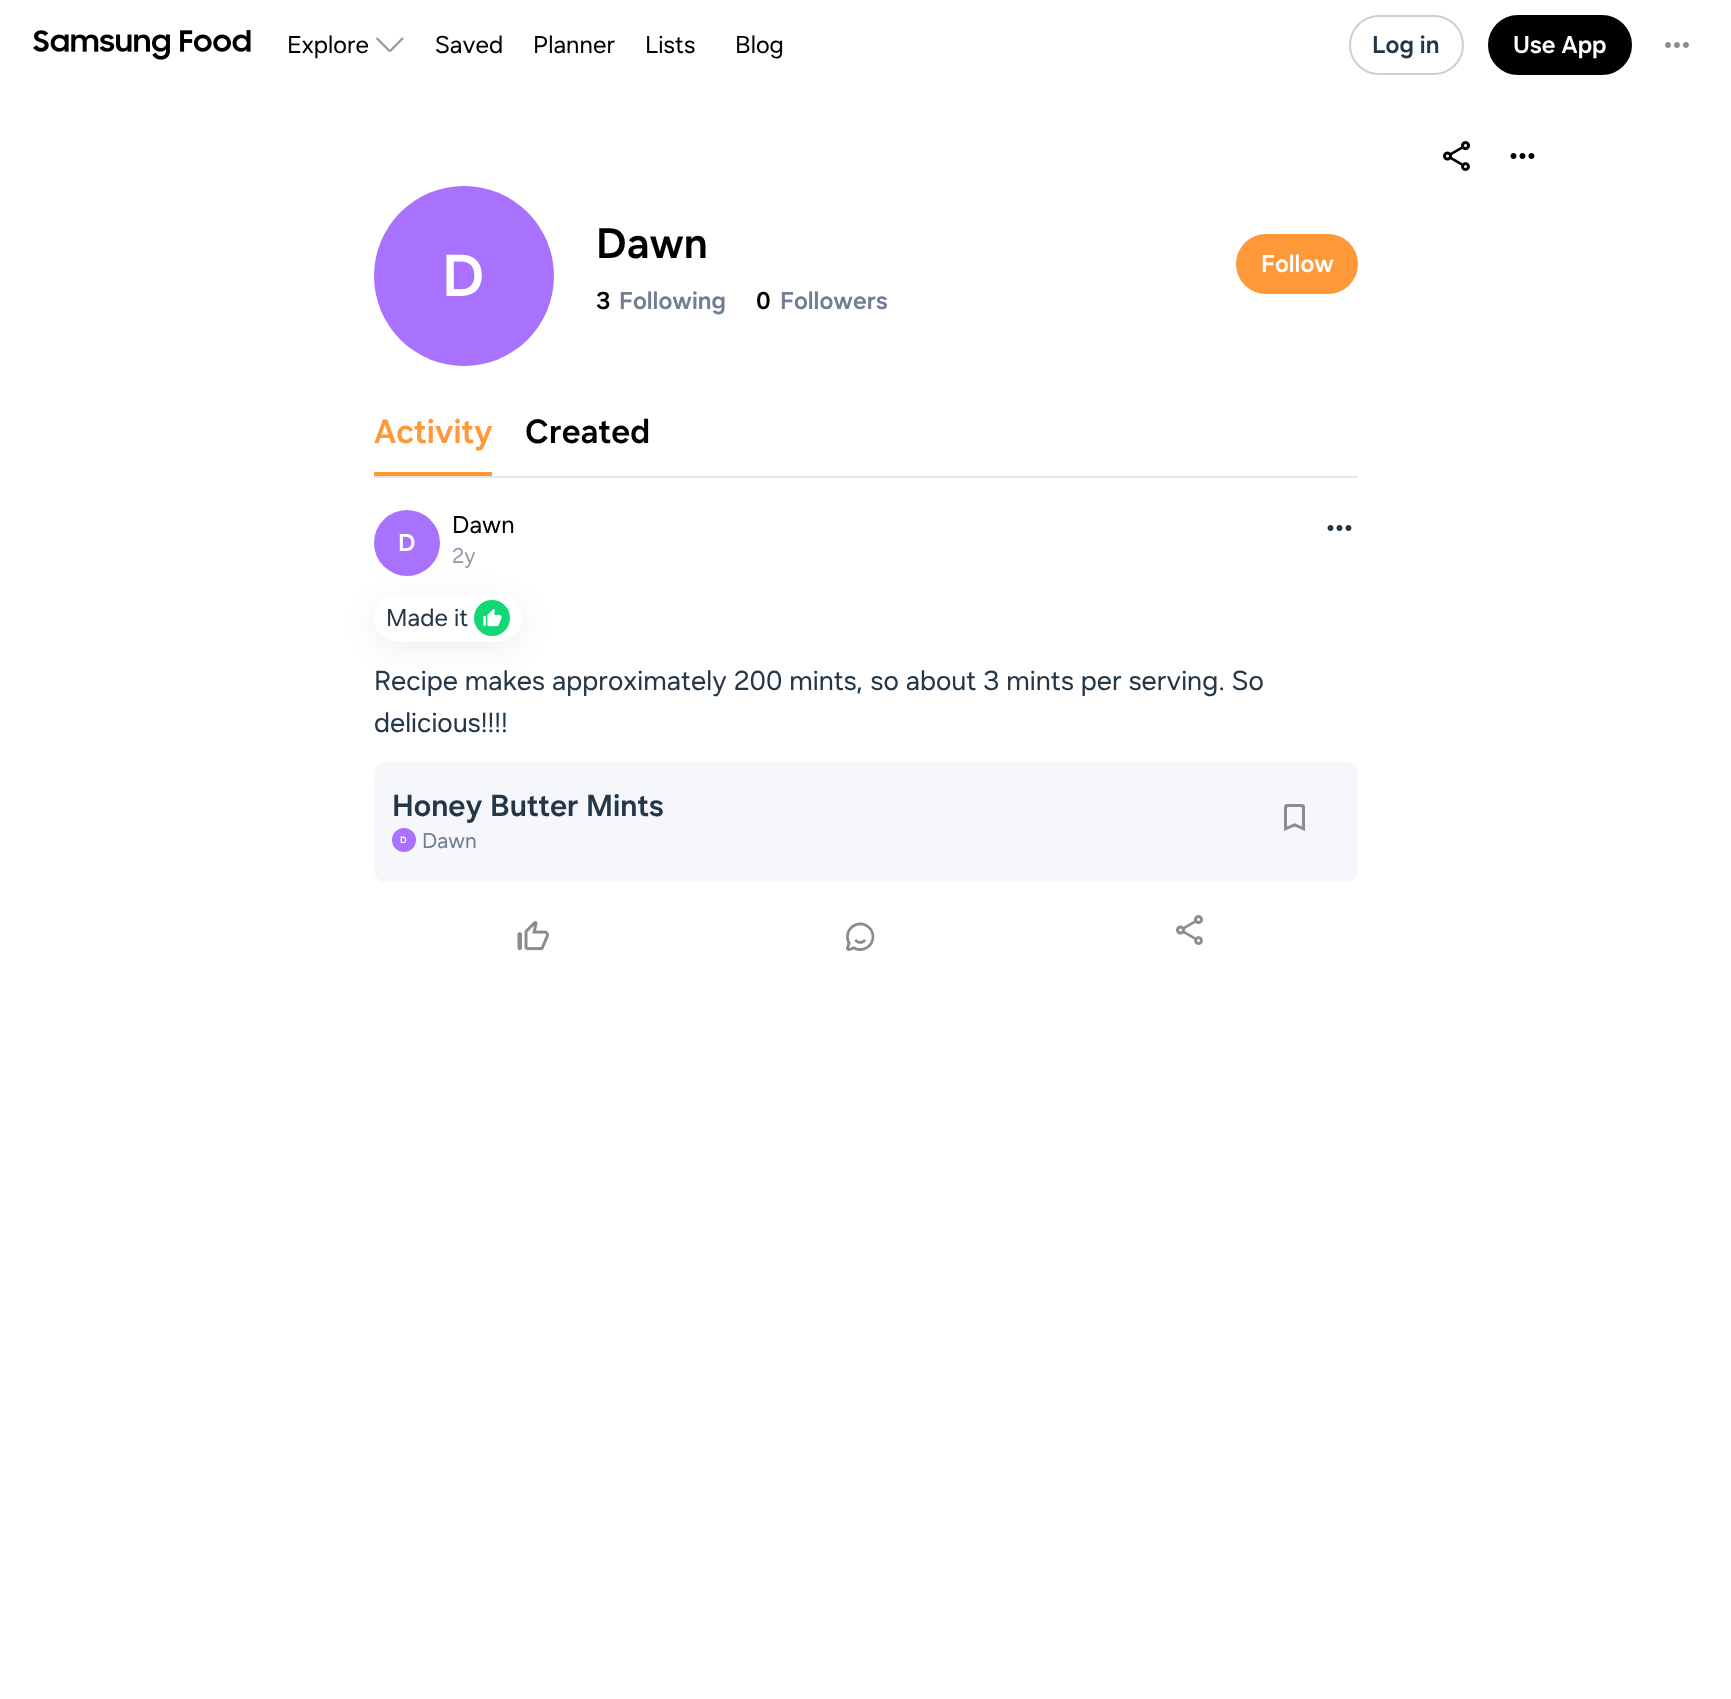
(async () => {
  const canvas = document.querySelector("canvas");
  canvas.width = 1731;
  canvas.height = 1699;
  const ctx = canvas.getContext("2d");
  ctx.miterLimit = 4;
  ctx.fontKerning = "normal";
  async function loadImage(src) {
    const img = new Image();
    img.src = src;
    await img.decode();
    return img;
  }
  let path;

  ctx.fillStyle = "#ffffff";
  ctx.fillRect(0, 0, 1731, 1699);
  ctx.drawImage(await loadImage("img/1.png"), 33, 30, 218, 30);
  ctx.drawImage(await loadImage("img/2.png"), 376, 37, 28, 15);
  ctx.beginPath();
  ctx.roundRect(1350, 16, 113, 58, 29);
  ctx.strokeStyle = "#cfcfcf";
  ctx.lineWidth = 2;
  ctx.stroke();
  ctx.fillStyle = "#010101";
  ctx.beginPath();
  ctx.roundRect(1489, 16, 142, 58, 29);
  ctx.fill();
  ctx.strokeStyle = "#010101";
  ctx.stroke();
  ctx.drawImage(await loadImage("img/3.png"), 1665, 42, 24, 6);
  ctx.drawImage(await loadImage("img/4.png"), 1443, 141, 27, 30);
  ctx.drawImage(await loadImage("img/5.png"), 1510, 153, 25, 6);
  ctx.fillStyle = "#a872ff";
  ctx.beginPath();
  ctx.arc(464, 276, 90, 0, Math.PI * 2);
  ctx.fill();
  ctx.fillStyle = "#ff9838";
  ctx.beginPath();
  ctx.roundRect(1236, 234, 122, 60, 30);
  ctx.fill();
  ctx.fillStyle = "#e6e6e6";
  ctx.fillRect(374, 476, 984, 2);
  ctx.save();
  ctx.beginPath();
  ctx.rect(374, 387, 118, 89);
  ctx.clip();
  ctx.fillStyle = "#ff9838";
  path = new Path2D("M225 238H640V624H225ZM374 378H492C494 378 495 379 495 381V470C495 471 494 472 492 472H374C372 472 370 471 370 470V381C370 379 372 378 374 378Z");
  ctx.fill(path, "evenodd");
  ctx.restore();
  ctx.fillStyle = "rgba(98, 98, 119, 0.1)";
  ctx.filter = "blur(15px)";
  ctx.beginPath();
  ctx.roundRect(374, 602, 148, 48, 24);
  ctx.fill();
  ctx.filter = "none";
  ctx.fillStyle = "#a872ff";
  ctx.beginPath();
  ctx.arc(407, 543, 33, 0, Math.PI * 2);
  ctx.fill();
  ctx.drawImage(await loadImage("img/6.png"), 1327, 525, 25, 6);
  ctx.fillStyle = "#ffffff";
  ctx.beginPath();
  ctx.roundRect(374, 594, 148, 48, 24);
  ctx.fill();
  ctx.fillStyle = "#11d874";
  ctx.beginPath();
  ctx.arc(492, 618, 18, 0, Math.PI * 2);
  ctx.fill();
  ctx.drawImage(await loadImage("img/7.png"), 483, 609, 19, 18);
  ctx.fillStyle = "#f6f7fa";
  ctx.beginPath();
  ctx.roundRect(374, 762, 984, 120, 12);
  ctx.fill();
  ctx.fillStyle = "#a872ff";
  ctx.beginPath();
  ctx.arc(404, 840, 12, 0, Math.PI * 2);
  ctx.fill();
  ctx.drawImage(await loadImage("img/8.png"), 1284, 804, 21, 27);
  ctx.drawImage(await loadImage("img/9.png"), 517, 921, 32, 30);
  ctx.drawImage(await loadImage("img/10.png"), 846, 922, 29, 29);
  ctx.drawImage(await loadImage("img/11.png"), 1176, 915, 27, 30);
  ctx.font = "24px 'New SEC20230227'";
  ctx.fillStyle = "#010101";
  for (const [text, x, y] of [
    ["Explore", 287, 53],
    ["Saved", 435, 53],
    ["Planner", 533, 53],
    ["Lists", 645, 53],
    ["Blog", 735, 53],
  ]) {
    ctx.fillText(text, x, y);
  }
  ctx.font = "600 24px 'New SEC20230227'";
  ctx.fillStyle = "#233748";
  ctx.fillText("Log in", 1372, 53);
  ctx.fillStyle = "#ffffff";
  ctx.fillText("Use App", 1513, 53);
  ctx.font = "600 58px 'New SEC20230227'";
  ctx.fillText("D", 442, 296);
  ctx.font = "600 42px 'New SEC20230227'";
  ctx.fillStyle = "#010101";
  ctx.fillText("Dawn", 596, 258);
  ctx.font = "600 24px 'New SEC20230227'";
  ctx.fillText("3", 596, 309);
  ctx.fillStyle = "#717f94";
  ctx.fillText("Following", 619, 309);
  ctx.fillStyle = "#010101";
  ctx.fillText("0", 756, 309);
  ctx.fillStyle = "#717f94";
  ctx.fillText("Followers", 780, 309);
  ctx.fillStyle = "#ffffff";
  ctx.fillText("Follow", 1261, 272);
  ctx.font = "600 33px 'New SEC20230227'";
  ctx.fillStyle = "#ff9838";
  ctx.fillText("Activity", 374, 443);
  ctx.fillStyle = "#010101";
  ctx.fillText("Created", 525, 443);
  ctx.font = "600 24px 'New SEC20230227'";
  ctx.fillStyle = "#ffffff";
  ctx.fillText("D", 398, 551);
  ctx.font = "24px 'New SEC20230227'";
  ctx.fillStyle = "#010101";
  ctx.fillText("Dawn", 452, 533);
  ctx.font = "21px 'New SEC20230227'";
  ctx.fillStyle = "#909bab";
  ctx.fillText("2y", 452, 563);
  ctx.font = "24px 'New SEC20230227'";
  ctx.fillStyle = "#233748";
  ctx.fillText("Made it", 386, 626);
  ctx.font = "27px 'New SEC20230227'";
  ctx.fillText("Recipe makes approximately 200 mints, so about 3 mints per serving. So", 374, 690);
  ctx.fillText("delicious!!!!", 374, 732);
  ctx.font = "600 30px 'New SEC20230227'";
  ctx.fillText("Honey Butter Mints", 392, 816);
  ctx.font = "600 9px 'New SEC20230227'";
  ctx.fillStyle = "#ffffff";
  ctx.fillText("D", 400, 843);
  ctx.font = "21px 'New SEC20230227'";
  ctx.fillStyle = "#717f94";
  ctx.fillText("Dawn", 422, 848);
})();
